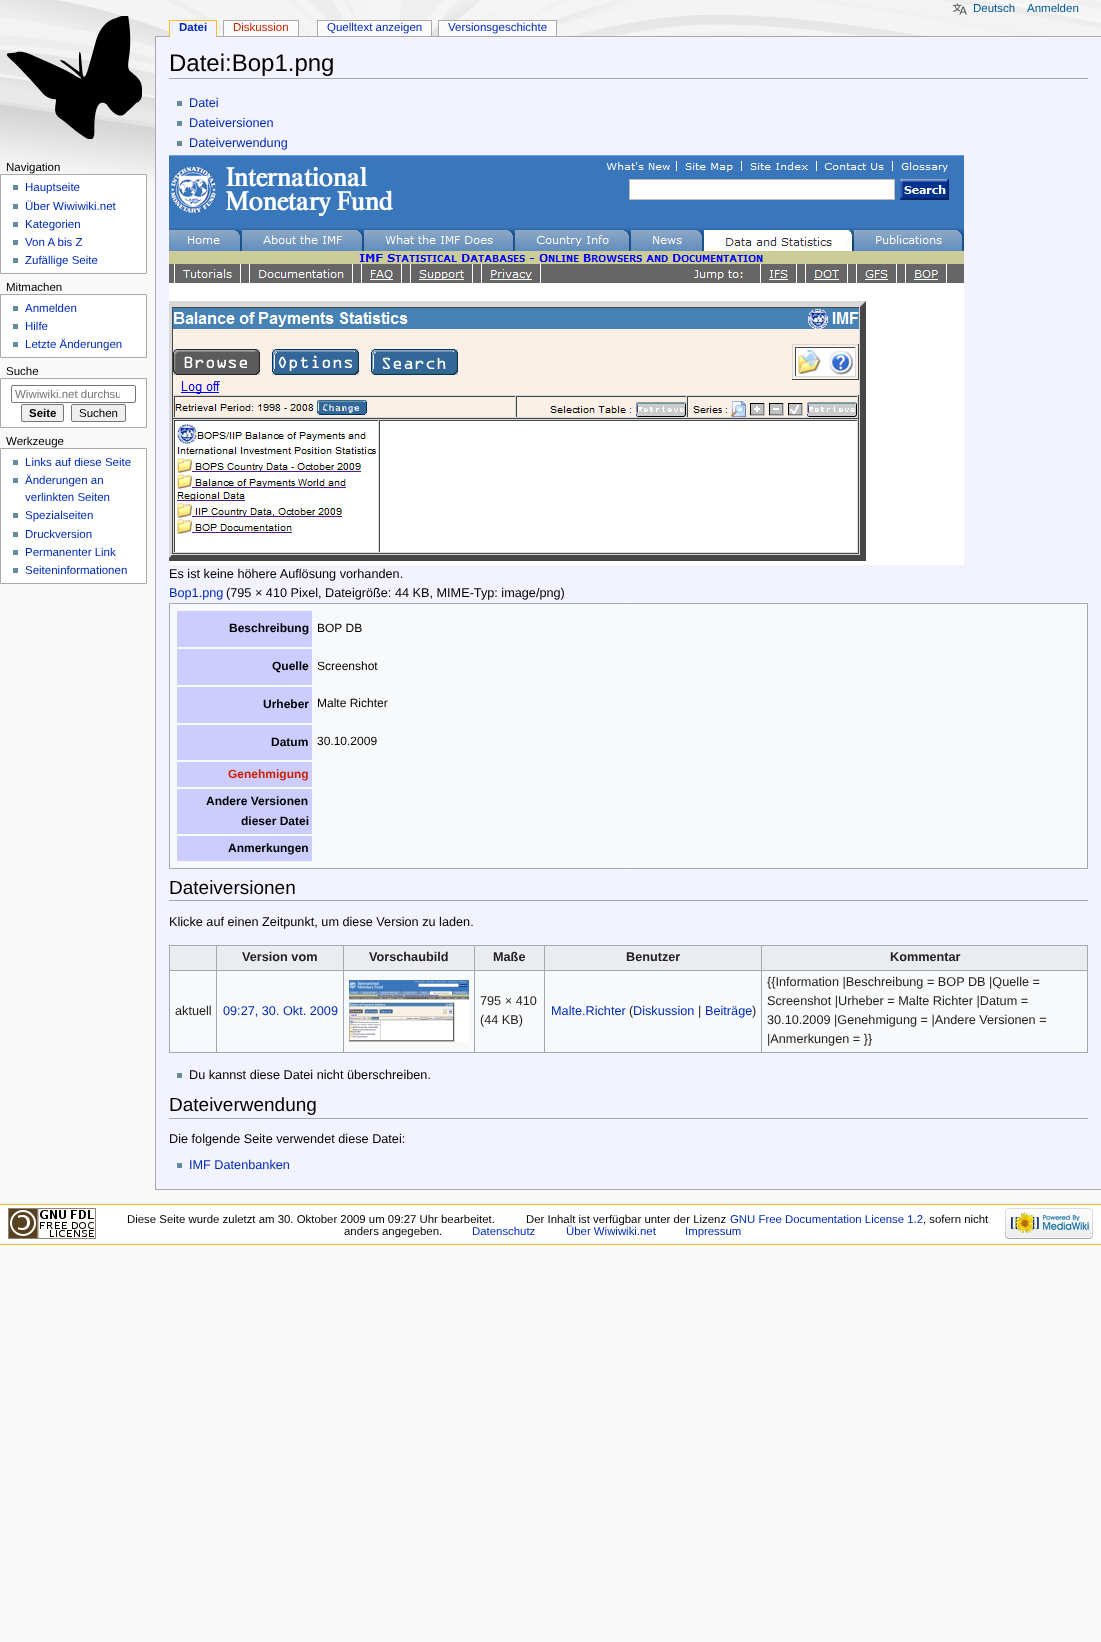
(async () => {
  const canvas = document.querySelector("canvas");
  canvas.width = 1101;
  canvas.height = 1642;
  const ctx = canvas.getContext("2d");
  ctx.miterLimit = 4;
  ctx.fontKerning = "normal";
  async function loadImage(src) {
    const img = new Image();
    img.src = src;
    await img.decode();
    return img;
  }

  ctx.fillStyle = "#f9f9f9";
  ctx.fillRect(0, 0, 1101, 1642);
  ctx.drawImage(await loadImage("img/1.png"), 0, 0, 1101, 210);
  ctx.drawImage(await loadImage("img/2.png"), 953, 3, 14, 12);
  ctx.drawImage(await loadImage("img/3.png"), 7, 16, 135, 123);
  for (const [x, y, w, h, color] of [
    [169, 20, 48, 1, "#fabd23"],
    [216, 20, 1, 16, "#fabd23"],
    [169, 20, 1, 16, "#fabd23"],
    [155, 36, 946, 1, "#aaaaaa"],
    [170, 21, 46, 16, "#f3f3ff"],
    [223, 20, 76, 1, "#aaaaaa"],
    [298, 20, 1, 16, "#aaaaaa"],
    [223, 20, 1, 16, "#aaaaaa"],
    [224, 21, 74, 15, "#fbfbfb"],
    [317, 20, 115, 1, "#aaaaaa"],
    [431, 20, 1, 16, "#aaaaaa"],
    [317, 20, 1, 16, "#aaaaaa"],
    [318, 21, 113, 15, "#fbfbfb"],
    [438, 20, 119, 1, "#aaaaaa"],
    [556, 20, 1, 16, "#aaaaaa"],
    [438, 20, 1, 16, "#aaaaaa"],
    [439, 21, 117, 15, "#fbfbfb"],
  ]) {
    ctx.fillStyle = color;
    ctx.fillRect(x, y, w, h);
  }
  ctx.fillStyle = "#ffffff";
  ctx.beginPath();
  ctx.rect(0.5, 174.5, 146, 99);
  ctx.fill();
  ctx.strokeStyle = "#aaaaaa";
  ctx.stroke();
  for (const [x, y, w, h, color] of [
    [13, 185, 5, 5, "#638c9c"],
    [13, 204, 5, 5, "#638c9c"],
    [13, 222, 5, 5, "#638c9c"],
    [13, 240, 5, 5, "#638c9c"],
    [13, 258, 5, 5, "#638c9c"],
  ]) {
    ctx.fillStyle = color;
    ctx.fillRect(x, y, w, h);
  }
  ctx.fillStyle = "#ffffff";
  ctx.beginPath();
  ctx.rect(0.5, 294.5, 146, 63);
  ctx.fill();
  ctx.stroke();
  for (const [x, y, w, h, color] of [
    [13, 306, 5, 5, "#638c9c"],
    [13, 324, 5, 5, "#638c9c"],
    [13, 342, 5, 5, "#638c9c"],
  ]) {
    ctx.fillStyle = color;
    ctx.fillRect(x, y, w, h);
  }
  ctx.fillStyle = "#ffffff";
  ctx.beginPath();
  ctx.rect(0.5, 378.5, 146, 49);
  ctx.fill();
  ctx.stroke();
  ctx.beginPath();
  ctx.roundRect(11.5, 385.5, 124, 17, 1.5);
  ctx.strokeStyle = "#767676";
  ctx.stroke();
  ctx.fillStyle = "#efefef";
  ctx.beginPath();
  ctx.roundRect(21.5, 404.5, 42, 17, 1.5);
  ctx.fill();
  ctx.stroke();
  ctx.beginPath();
  ctx.roundRect(71.5, 404.5, 54, 17, 1.5);
  ctx.fill();
  ctx.stroke();
  ctx.fillStyle = "#ffffff";
  ctx.beginPath();
  ctx.rect(0.5, 448.5, 146, 135);
  ctx.fill();
  ctx.strokeStyle = "#aaaaaa";
  ctx.stroke();
  for (const [x, y, w, h, color] of [
    [13, 460, 5, 5, "#638c9c"],
    [13, 478, 5, 5, "#638c9c"],
    [13, 513, 5, 5, "#638c9c"],
    [13, 532, 5, 5, "#638c9c"],
    [13, 550, 5, 5, "#638c9c"],
    [13, 568, 5, 5, "#638c9c"],
    [156, 37, 945, 1152, "#f3f3ff"],
    [155, 1189, 946, 1, "#aaaaaa"],
    [155, 36, 1, 1154, "#aaaaaa"],
    [169, 78, 919, 1, "#a2a9b1"],
    [177, 101, 5, 5, "#638c9c"],
    [177, 121, 5, 5, "#638c9c"],
    [177, 141, 5, 5, "#638c9c"],
  ]) {
    ctx.fillStyle = color;
    ctx.fillRect(x, y, w, h);
  }
  ctx.drawImage(await loadImage("img/4.png"), 169, 155, 795, 410);
  ctx.fillStyle = "#f8f9fa";
  ctx.beginPath();
  ctx.rect(169.5, 603.5, 918, 265);
  ctx.fill();
  ctx.strokeStyle = "#a2a9b1";
  ctx.stroke();
  for (const [x, y, w, h, color] of [
    [177, 611, 135, 36, "#ccccff"],
    [177, 649, 135, 36, "#ccccff"],
    [177, 687, 135, 36, "#ccccff"],
    [177, 725, 135, 35, "#ccccff"],
    [177, 762, 135, 25, "#ccccff"],
    [177, 789, 135, 45, "#ccccff"],
    [177, 836, 135, 25, "#ccccff"],
    [169, 900, 919, 1, "#a2a9b1"],
    [170, 971, 917, 81, "#f8f9fa"],
    [169, 945, 919, 1, "#a2a9b1"],
    [1087, 945, 1, 108, "#a2a9b1"],
    [169, 1052, 919, 1, "#a2a9b1"],
    [169, 945, 1, 108, "#a2a9b1"],
    [170, 946, 46, 24, "#eaecf0"],
    [217, 946, 126, 24, "#eaecf0"],
    [761, 970, 327, 1, "#a2a9b1"],
    [761, 970, 1, 83, "#a2a9b1"],
    [544, 970, 218, 1, "#a2a9b1"],
    [544, 970, 1, 83, "#a2a9b1"],
    [474, 970, 71, 1, "#a2a9b1"],
    [474, 970, 1, 83, "#a2a9b1"],
    [343, 970, 132, 1, "#a2a9b1"],
    [343, 970, 1, 83, "#a2a9b1"],
    [216, 970, 128, 1, "#a2a9b1"],
    [216, 970, 1, 83, "#a2a9b1"],
    [169, 970, 48, 1, "#a2a9b1"],
    [216, 945, 1, 26, "#a2a9b1"],
    [344, 946, 130, 24, "#eaecf0"],
    [343, 945, 1, 26, "#a2a9b1"],
    [475, 946, 69, 24, "#eaecf0"],
    [474, 945, 1, 26, "#a2a9b1"],
    [545, 946, 216, 24, "#eaecf0"],
    [544, 945, 1, 26, "#a2a9b1"],
    [762, 946, 325, 24, "#eaecf0"],
    [761, 945, 1, 26, "#a2a9b1"],
  ]) {
    ctx.fillStyle = color;
    ctx.fillRect(x, y, w, h);
  }
  ctx.drawImage(await loadImage("img/5.png"), 349, 980, 120, 62);
  for (const [x, y, w, h, color] of [
    [177, 1073, 5, 5, "#638c9c"],
    [169, 1118, 919, 1, "#a2a9b1"],
    [177, 1163, 5, 5, "#638c9c"],
    [0, 1205, 1101, 39, "#ffffff"],
    [0, 1204, 1101, 1, "#fabd23"],
    [0, 1244, 1101, 1, "#fabd23"],
  ]) {
    ctx.fillStyle = color;
    ctx.fillRect(x, y, w, h);
  }
  ctx.drawImage(await loadImage("img/6.png"), 8, 1208, 88, 31);
  ctx.drawImage(await loadImage("img/7.png"), 1005, 1208, 88, 31);
  ctx.font = "11.5px Liberation Sans";
  ctx.fillStyle = "#005896";
  ctx.fillText("Deutsch", 973, 12);
  ctx.fillText("Anmelden", 1027, 12);
  ctx.font = "bold 11.5px Liberation Sans";
  ctx.fillStyle = "#002bb8";
  ctx.fillText("Datei", 179, 31);
  ctx.font = "11.5px Liberation Sans";
  ctx.fillStyle = "#cc2200";
  ctx.fillText("Diskussion", 233, 31);
  ctx.fillStyle = "#002bb8";
  ctx.fillText("Quelltext anzeigen", 327, 31);
  ctx.fillText("Versionsgeschichte", 448, 31);
  ctx.fillStyle = "#000000";
  ctx.fillText("Navigation", 6, 171);
  ctx.fillStyle = "#002bb8";
  for (const [text, x, y] of [
    ["Hauptseite", 25, 191],
    ["Über Wiwiwiki.net", 25, 210],
    ["Kategorien", 25, 228],
    ["Von A bis Z", 25, 246],
    ["Zufällige Seite", 25, 264],
  ]) {
    ctx.fillText(text, x, y);
  }
  ctx.fillStyle = "#000000";
  ctx.fillText("Mitmachen", 6, 291);
  ctx.fillStyle = "#002bb8";
  for (const [text, x, y] of [
    ["Anmelden", 25, 312],
    ["Hilfe", 25, 330],
    ["Letzte Änderungen", 25, 348],
  ]) {
    ctx.fillText(text, x, y);
  }
  ctx.fillStyle = "#000000";
  ctx.fillText("Suche", 6, 375);
  ctx.save();
  ctx.beginPath();
  ctx.rect(15, 388, 105, 12);
  ctx.clip();
  ctx.fillStyle = "#757575";
  ctx.fillText("Wiwiwiki.net durchsu", 15, 398);
  ctx.restore();
  ctx.font = "bold 11.5px Liberation Sans";
  ctx.fillText("Seite", 29, 417);
  ctx.font = "11.5px Liberation Sans";
  ctx.fillText("Suchen", 79, 417);
  ctx.fillText("Werkzeuge", 6, 445);
  ctx.fillStyle = "#002bb8";
  for (const [text, x, y] of [
    ["Links auf diese Seite", 25, 466],
    ["Änderungen an", 25, 484],
    ["verlinkten Seiten", 25, 501],
    ["Spezialseiten", 25, 519],
    ["Druckversion", 25, 538],
    ["Permanenter Link", 25, 556],
    ["Seiteninformationen", 25, 574],
  ]) {
    ctx.fillText(text, x, y);
  }
  ctx.font = "24px Liberation Sans";
  ctx.fillStyle = "#000000";
  ctx.fillText("Datei:Bop1.png", 169, 71);
  ctx.font = "12.7px Liberation Sans";
  ctx.fillStyle = "#002bb8";
  for (const [text, x, y] of [
    ["Datei", 189, 107],
    ["Dateiversionen", 189, 127],
    ["Dateiverwendung", 189, 147],
  ]) {
    ctx.fillText(text, x, y);
  }
  ctx.fillStyle = "#000000";
  ctx.fillText("Es ist keine höhere Auflösung vorhanden.", 169, 578);
  ctx.fillStyle = "#002bb8";
  ctx.fillText("Bop1.png", 169, 597);
  ctx.fillStyle = "#000000";
  ctx.fillText("(795 × 410 Pixel, Dateigröße: 44 KB, MIME-Typ: image/png)", 226, 597);
  ctx.font = "bold 12px Liberation Sans";
  ctx.fillText("Beschreibung", 229, 632);
  ctx.font = "12px Liberation Sans";
  ctx.fillText("BOP DB", 317, 632);
  ctx.font = "bold 12px Liberation Sans";
  ctx.fillText("Quelle", 272, 670);
  ctx.font = "12px Liberation Sans";
  ctx.fillText("Screenshot", 317, 670);
  ctx.font = "bold 12px Liberation Sans";
  ctx.fillText("Urheber", 263, 708);
  ctx.font = "12px Liberation Sans";
  ctx.fillText("Malte Richter", 317, 707);
  ctx.font = "bold 12px Liberation Sans";
  ctx.fillText("Datum", 271, 746);
  ctx.font = "12px Liberation Sans";
  ctx.fillText("30.10.2009", 317, 745);
  ctx.font = "bold 12px Liberation Sans";
  ctx.fillStyle = "#cc2200";
  ctx.fillText("Genehmigung", 228, 778);
  ctx.fillStyle = "#000000";
  for (const [text, x, y] of [
    ["Andere Versionen", 206, 805],
    ["dieser Datei", 241, 825],
    ["Anmerkungen", 228, 852],
  ]) {
    ctx.fillText(text, x, y);
  }
  ctx.font = "19px Liberation Sans";
  ctx.fillText("Dateiversionen", 169, 894);
  ctx.font = "12.7px Liberation Sans";
  ctx.fillText("Klicke auf einen Zeitpunkt, um diese Version zu laden.", 169, 926);
  ctx.font = "bold 12.7px Liberation Sans";
  ctx.fillStyle = "#222222";
  for (const [text, x, y] of [
    ["Version vom", 242, 961],
    ["Vorschaubild", 369, 961],
    ["Maße", 493, 961],
    ["Benutzer", 626, 961],
    ["Kommentar", 890, 961],
  ]) {
    ctx.fillText(text, x, y);
  }
  ctx.font = "12.7px Liberation Sans";
  ctx.fillText("aktuell", 175, 1015);
  ctx.fillStyle = "#002bb8";
  ctx.fillText("09:27, 30. Okt. 2009", 223, 1015);
  ctx.fillStyle = "#222222";
  ctx.fillText("795 × 410", 480, 1005);
  ctx.fillText("(44 KB)", 480, 1024);
  ctx.fillStyle = "#002bb8";
  ctx.fillText("Malte.Richter", 551, 1015);
  ctx.fillStyle = "#222222";
  ctx.fillText("(", 629, 1015);
  ctx.fillStyle = "#002bb8";
  ctx.fillText("Diskussion", 633, 1015);
  ctx.fillStyle = "#222222";
  ctx.fillText("|", 698, 1015);
  ctx.fillStyle = "#002bb8";
  ctx.fillText("Beiträge", 705, 1015);
  ctx.fillStyle = "#222222";
  for (const [text, x, y] of [
    [")", 752, 1015],
    ["{{Information |Beschreibung = BOP DB |Quelle =", 767, 986],
    ["Screenshot |Urheber = Malte Richter |Datum =", 767, 1005],
    ["30.10.2009 |Genehmigung = |Andere Versionen =", 767, 1024],
    ["|Anmerkungen = }}", 767, 1043],
  ]) {
    ctx.fillText(text, x, y);
  }
  ctx.fillStyle = "#000000";
  ctx.fillText("Du kannst diese Datei nicht überschreiben.", 189, 1079);
  ctx.font = "19px Liberation Sans";
  ctx.fillText("Dateiverwendung", 169, 1111);
  ctx.font = "12.7px Liberation Sans";
  ctx.fillText("Die folgende Seite verwendet diese Datei:", 169, 1143);
  ctx.fillStyle = "#002bb8";
  ctx.fillText("IMF Datenbanken", 189, 1169);
  ctx.font = "11.4px Liberation Sans";
  ctx.fillStyle = "#000000";
  ctx.fillText("Diese Seite wurde zuletzt am 30. Oktober 2009 um 09:27 Uhr bearbeitet.", 127, 1223);
  ctx.fillText("Der Inhalt ist verfügbar unter der Lizenz", 526, 1223);
  ctx.fillStyle = "#002bb8";
  ctx.fillText("GNU Free Documentation License 1.2", 730, 1223);
  ctx.fillStyle = "#000000";
  ctx.fillText(", sofern nicht", 923, 1223);
  ctx.fillText("anders angegeben.", 344, 1235);
  ctx.fillStyle = "#002bb8";
  for (const [text, x, y] of [
    ["Datenschutz", 472, 1235],
    ["Über Wiwiwiki.net", 566, 1235],
    ["Impressum", 685, 1235],
  ]) {
    ctx.fillText(text, x, y);
  }
})();
